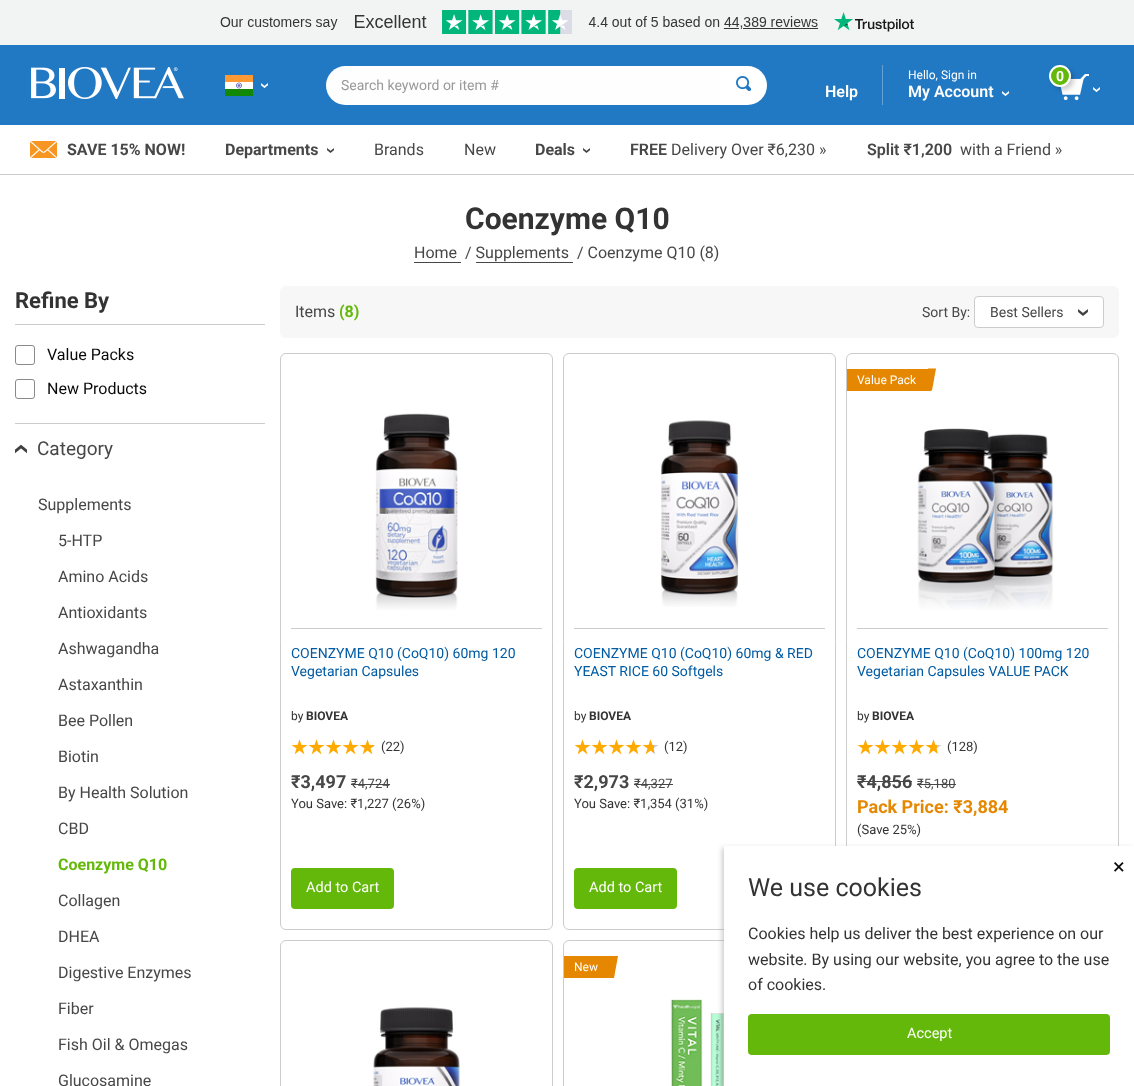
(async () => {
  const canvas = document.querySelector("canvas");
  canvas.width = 1134;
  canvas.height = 1086;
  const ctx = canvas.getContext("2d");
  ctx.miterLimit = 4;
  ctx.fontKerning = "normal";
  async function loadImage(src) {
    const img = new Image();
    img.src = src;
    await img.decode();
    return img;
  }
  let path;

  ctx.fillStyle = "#ffffff";
  ctx.fillRect(0, 0, 1134, 1086);
  ctx.fillStyle = "#f2f4f4";
  ctx.fillRect(0, 0, 1134, 45);
  ctx.drawImage(await loadImage("img/1.png"), 220, 10, 694, 24);
  ctx.fillStyle = "#2279c3";
  ctx.fillRect(0, 45, 1134, 80);
  ctx.drawImage(await loadImage("img/2.png"), 31, 67, 153, 32);
  ctx.drawImage(await loadImage("img/3.png"), 225, 75, 28, 21);
  ctx.drawImage(await loadImage("img/4.png"), 261, 83, 7, 5);
  ctx.fillStyle = "#fefefe";
  ctx.beginPath();
  ctx.roundRect(326, 66, 394, 39, [19.5, 0, 0, 19.5]);
  ctx.fill();
  ctx.fillStyle = "#ffffff";
  ctx.beginPath();
  ctx.roundRect(720, 66, 47, 39, [0, 19.5, 19.5, 0]);
  ctx.fill();
  ctx.drawImage(await loadImage("img/5.png"), 736, 76, 15, 15);
  ctx.fillStyle = "#64a1d5";
  ctx.fillRect(882, 65, 1, 40);
  ctx.drawImage(await loadImage("img/4.png"), 1002, 91, 7, 5);
  ctx.drawImage(await loadImage("img/6.png"), 1060, 74, 29, 27);
  ctx.fillStyle = "rgba(0, 0, 0, 0.2)";
  ctx.filter = "blur(2.5px)";
  ctx.beginPath();
  ctx.roundRect(1052, 68, 22, 22, 11);
  ctx.fill();
  ctx.filter = "none";
  ctx.fillStyle = "#63b809";
  ctx.beginPath();
  ctx.arc(1060, 76, 10, 0, Math.PI * 2);
  ctx.fill();
  ctx.strokeStyle = "#ffffff";
  ctx.lineWidth = 2;
  ctx.stroke();
  ctx.drawImage(await loadImage("img/4.png"), 1093, 87, 7, 5);
  ctx.fillStyle = "#cccccc";
  ctx.fillRect(0, 174, 1134, 1);
  ctx.drawImage(await loadImage("img/7.png"), 30, 141, 27, 17);
  ctx.drawImage(await loadImage("img/8.png"), 327, 148, 7, 5);
  ctx.drawImage(await loadImage("img/8.png"), 583, 148, 7, 5);
  ctx.beginPath();
  ctx.roundRect(563.5, 353.5, 272, 576, 5.5);
  ctx.strokeStyle = "#cccccc";
  ctx.lineWidth = 1;
  ctx.stroke();
  ctx.beginPath();
  ctx.roundRect(846.5, 353.5, 272, 576, 5.5);
  ctx.stroke();
  ctx.beginPath();
  ctx.roundRect(563.5, 940.5, 272, 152, 5.5);
  ctx.stroke();
  ctx.drawImage(await loadImage("img/18.png"), 670, 999, 54, 87);
  ctx.fillStyle = "rgba(156, 156, 156, 0.5)";
  ctx.filter = "blur(2.5px)";
  ctx.beginPath();
  ctx.rect(722, 848, 410, 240);
  ctx.fill();
  ctx.filter = "none";
  ctx.fillStyle = "#ffffff";
  ctx.fillRect(724, 846, 410, 240);
  ctx.fillStyle = "#63b809";
  ctx.beginPath();
  ctx.roundRect(748, 1014, 362, 41, 4);
  ctx.fill();
  for (const [x, y, w, h, color] of [
    [414, 262, 47, 1, "#474747"],
    [476, 262, 97, 1, "#474747"],
    [15, 324, 250, 1, "#cccccc"],
  ]) {
    ctx.fillStyle = color;
    ctx.fillRect(x, y, w, h);
  }
  ctx.beginPath();
  ctx.roundRect(15.5, 345.5, 19, 19, 2.5);
  ctx.strokeStyle = "#8a8a8a";
  ctx.stroke();
  ctx.beginPath();
  ctx.roundRect(15.5, 379.5, 19, 19, 2.5);
  ctx.stroke();
  ctx.fillRect(15, 423, 250, 1);
  ctx.drawImage(await loadImage("img/9.png"), 15, 444, 12, 10);
  ctx.fillStyle = "#f7f7f7";
  ctx.beginPath();
  ctx.roundRect(280, 286, 839, 52, 6);
  ctx.fill();
  ctx.fillStyle = "#ffffff";
  ctx.beginPath();
  ctx.roundRect(974.5, 296.5, 129, 31, 3.5);
  ctx.fill();
  ctx.strokeStyle = "#cccccc";
  ctx.stroke();
  ctx.drawImage(await loadImage("img/10.png"), 1078, 309, 10, 7);
  ctx.beginPath();
  ctx.roundRect(280.5, 353.5, 272, 576, 5.5);
  ctx.stroke();
  ctx.fillStyle = "#cccccc";
  ctx.fillRect(291, 628, 251, 1);
  ctx.drawImage(await loadImage("img/11.png"), 375, 413, 83, 197);
  ctx.fillRect(374, 745, 2, 1);
  ctx.fillStyle = "#feaa00";
  ctx.fillRect(291, 739, 83, 16);
  ctx.drawImage(await loadImage("img/12.png"), 291, 738, 17, 18);
  ctx.drawImage(await loadImage("img/12.png"), 308, 738, 17, 18);
  ctx.drawImage(await loadImage("img/12.png"), 325, 738, 17, 18);
  ctx.drawImage(await loadImage("img/12.png"), 342, 738, 17, 18);
  ctx.drawImage(await loadImage("img/13.png"), 359, 738, 17, 18);
  ctx.fillStyle = "#474747";
  ctx.fillRect(351, 784, 39, 1);
  ctx.fillStyle = "#63b809";
  ctx.beginPath();
  ctx.roundRect(291, 868, 103, 41, 4);
  ctx.fill();
  ctx.fillStyle = "#cccccc";
  ctx.fillRect(574, 628, 251, 1);
  ctx.drawImage(await loadImage("img/14.png"), 661, 420, 78, 187);
  ctx.fillRect(654, 744, 5, 11);
  ctx.fillStyle = "#feaa00";
  ctx.fillRect(574, 739, 80, 16);
  ctx.drawImage(await loadImage("img/12.png"), 574, 738, 17, 18);
  ctx.drawImage(await loadImage("img/12.png"), 591, 738, 17, 18);
  ctx.drawImage(await loadImage("img/12.png"), 608, 738, 17, 18);
  ctx.drawImage(await loadImage("img/12.png"), 625, 738, 17, 18);
  ctx.drawImage(await loadImage("img/15.png"), 642, 738, 17, 18);
  ctx.fillStyle = "#474747";
  ctx.fillRect(634, 784, 39, 1);
  ctx.fillStyle = "#63b809";
  ctx.beginPath();
  ctx.roundRect(574, 868, 103, 41, 4);
  ctx.fill();
  ctx.fillStyle = "#e58700";
  ctx.fillRect(847, 369, 84, 22);
  path = new Path2D("M928 368.5H936L932 390.5H924Z");
  ctx.fill(path);
  ctx.fillStyle = "#cccccc";
  ctx.fillRect(857, 628, 251, 1);
  ctx.drawImage(await loadImage("img/16.png"), 917, 428, 137, 182);
  ctx.fillRect(937, 744, 5, 11);
  ctx.fillStyle = "#feaa00";
  ctx.fillRect(857, 739, 80, 16);
  ctx.drawImage(await loadImage("img/12.png"), 857, 738, 17, 18);
  ctx.drawImage(await loadImage("img/12.png"), 874, 738, 17, 18);
  ctx.drawImage(await loadImage("img/12.png"), 891, 738, 17, 18);
  ctx.drawImage(await loadImage("img/12.png"), 908, 738, 17, 18);
  ctx.drawImage(await loadImage("img/15.png"), 925, 738, 17, 18);
  ctx.fillStyle = "#474747";
  ctx.fillRect(857, 781, 55, 1);
  ctx.fillRect(917, 784, 39, 1);
  ctx.beginPath();
  ctx.roundRect(280.5, 940.5, 272, 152, 5.5);
  ctx.stroke();
  ctx.drawImage(await loadImage("img/17.png"), 373, 1007, 87, 79);
  ctx.fillStyle = "#e58700";
  ctx.fillRect(564, 956, 46, 22);
  path = new Path2D("M610 956H618L614 978H606Z");
  ctx.fill(path);
  ctx.font = "14px Roboto";
  ctx.fillStyle = "#999999";
  ctx.fillText("Search keyword or item #", 341, 90);
  ctx.font = "600 16px Roboto";
  ctx.fillStyle = "#ffffff";
  ctx.fillText("Help", 825, 97);
  ctx.font = "12px Roboto";
  ctx.fillText("Hello, Sign in", 908, 79);
  ctx.font = "600 16px Roboto";
  ctx.fillText("My Account", 908, 97);
  ctx.font = "bold 14px Roboto";
  ctx.fillText("0", 1056, 81);
  ctx.font = "bold 16px Roboto";
  ctx.fillStyle = "#474747";
  ctx.fillText("SAVE 15% NOW!", 67, 155);
  ctx.fillText("Departments", 225, 155);
  ctx.font = "16px Roboto";
  ctx.fillText("Brands", 374, 155);
  ctx.fillText("New", 464, 155);
  ctx.font = "bold 16px Roboto";
  ctx.fillText("Deals", 535, 155);
  ctx.font = "600 16px Roboto";
  ctx.fillText("FREE", 630, 155);
  ctx.font = "16px Roboto";
  ctx.fillText("Delivery Over ₹6,230 »", 671, 155);
  ctx.font = "600 16px Roboto";
  ctx.fillText("Split ₹1,200", 867, 155);
  ctx.font = "16px Roboto";
  ctx.fillText("with a Friend »", 960, 155);
  ctx.font = "22px Roboto";
  ctx.fillStyle = "#0a0a0a";
  ctx.fillText("×", 1113, 874);
  ctx.font = "25px Roboto";
  ctx.fillStyle = "#333333";
  ctx.fillText("We use cookies", 748, 896);
  ctx.font = "16px Roboto";
  for (const [text, x, y] of [
    ["Cookies help us deliver the best experience on our", 748, 939],
    ["website. By using our website, you agree to the use", 748, 965],
    ["of cookies.", 748, 990],
  ]) {
    ctx.fillText(text, x, y);
  }
  ctx.font = "14.5px Roboto";
  ctx.fillStyle = "#ffffff";
  ctx.fillText("Accept", 907, 1038);
  ctx.font = "bold 30px Roboto";
  ctx.fillStyle = "#333333";
  ctx.fillText("Coenzyme Q10", 465, 229);
  ctx.font = "16px Roboto";
  ctx.fillStyle = "#474747";
  for (const [text, x, y] of [
    ["Home", 414, 258],
    ["/ Supplements", 465, 258],
    ["/ Coenzyme Q10 (8)", 577, 258],
  ]) {
    ctx.fillText(text, x, y);
  }
  ctx.font = "bold 22px Roboto";
  ctx.fillStyle = "#333333";
  ctx.fillText("Refine By", 15, 308);
  ctx.font = "16px Roboto";
  ctx.fillStyle = "#0a0a0a";
  ctx.fillText("Value Packs", 47, 360);
  ctx.fillText("New Products", 47, 394);
  ctx.font = "19px Roboto";
  ctx.fillStyle = "#474747";
  ctx.fillText("Category", 37, 455);
  ctx.font = "16px Roboto";
  for (const [text, x, y] of [
    ["Supplements", 38, 510],
    ["5-HTP", 58, 546],
    ["Amino Acids", 58, 582],
    ["Antioxidants", 58, 618],
    ["Ashwagandha", 58, 654],
    ["Astaxanthin", 58, 690],
    ["Bee Pollen", 58, 726],
    ["Biotin", 58, 762],
    ["By Health Solution", 58, 798],
    ["CBD", 58, 834],
  ]) {
    ctx.fillText(text, x, y);
  }
  ctx.font = "bold 16px Roboto";
  ctx.fillStyle = "#63b809";
  ctx.fillText("Coenzyme Q10", 58, 870);
  ctx.font = "16px Roboto";
  ctx.fillStyle = "#474747";
  for (const [text, x, y] of [
    ["Collagen", 58, 906],
    ["DHEA", 58, 942],
    ["Digestive Enzymes", 58, 978],
    ["Fiber", 58, 1014],
    ["Fish Oil & Omegas", 58, 1050],
    ["Glucosamine", 58, 1086],
    ["Items", 295, 317],
  ]) {
    ctx.fillText(text, x, y);
  }
  ctx.font = "bold 16px Roboto";
  ctx.fillStyle = "#63b809";
  ctx.fillText("(8)", 339, 317);
  ctx.font = "14px Roboto";
  ctx.fillStyle = "#474747";
  ctx.fillText("Sort By:", 922, 317);
  ctx.fillText("Best Sellers", 990, 317);
  ctx.fillStyle = "#005ba3";
  ctx.fillText("COENZYME Q10 (CoQ10) 60mg 120", 291, 658);
  ctx.fillText("Vegetarian Capsules", 291, 676);
  ctx.font = "12px Roboto";
  ctx.fillStyle = "#333333";
  ctx.fillText("by", 291, 720);
  ctx.font = "bold 12px Roboto";
  ctx.fillText("BIOVEA", 306, 720);
  ctx.font = "13px Roboto";
  ctx.fillText("(22)", 381, 751);
  ctx.font = "bold 18px Roboto";
  ctx.fillStyle = "#474747";
  ctx.fillText("₹3,497", 291, 788);
  ctx.font = "13px Roboto";
  ctx.fillText("₹4,724", 351, 788);
  ctx.fillStyle = "#333333";
  ctx.fillText("You Save: ₹1,227 (26%)", 291, 808);
  ctx.font = "14.5px Roboto";
  ctx.fillStyle = "#ffffff";
  ctx.fillText("Add to Cart", 306, 892);
  ctx.font = "14px Roboto";
  ctx.fillStyle = "#005ba3";
  ctx.fillText("COENZYME Q10 (CoQ10) 60mg & RED", 574, 658);
  ctx.fillText("YEAST RICE 60 Softgels", 574, 676);
  ctx.font = "12px Roboto";
  ctx.fillStyle = "#333333";
  ctx.fillText("by", 574, 720);
  ctx.font = "bold 12px Roboto";
  ctx.fillText("BIOVEA", 589, 720);
  ctx.font = "13px Roboto";
  ctx.fillText("(12)", 664, 751);
  ctx.font = "bold 18px Roboto";
  ctx.fillStyle = "#474747";
  ctx.fillText("₹2,973", 574, 788);
  ctx.font = "13px Roboto";
  ctx.fillText("₹4,327", 634, 788);
  ctx.fillStyle = "#333333";
  ctx.fillText("You Save: ₹1,354 (31%)", 574, 808);
  ctx.font = "14.5px Roboto";
  ctx.fillStyle = "#ffffff";
  ctx.fillText("Add to Cart", 589, 892);
  ctx.font = "12px Roboto";
  ctx.fillText("Value Pack", 857, 384);
  ctx.font = "14px Roboto";
  ctx.fillStyle = "#005ba3";
  ctx.fillText("COENZYME Q10 (CoQ10) 100mg 120", 857, 658);
  ctx.fillText("Vegetarian Capsules VALUE PACK", 857, 676);
  ctx.font = "12px Roboto";
  ctx.fillStyle = "#333333";
  ctx.fillText("by", 857, 720);
  ctx.font = "bold 12px Roboto";
  ctx.fillText("BIOVEA", 872, 720);
  ctx.font = "13px Roboto";
  ctx.fillText("(128)", 947, 751);
  ctx.font = "bold 18px Roboto";
  ctx.fillStyle = "#474747";
  ctx.fillText("₹4,856", 857, 788);
  ctx.font = "13px Roboto";
  ctx.fillText("₹5,180", 917, 788);
  ctx.font = "bold 18px Roboto";
  ctx.fillStyle = "#e58700";
  ctx.fillText("Pack Price: ₹3,884", 857, 813);
  ctx.font = "13px Roboto";
  ctx.fillStyle = "#333333";
  ctx.fillText("(Save 25%)", 857, 834);
  ctx.font = "12px Roboto";
  ctx.fillStyle = "#ffffff";
  ctx.fillText("New", 574, 971);
})();
